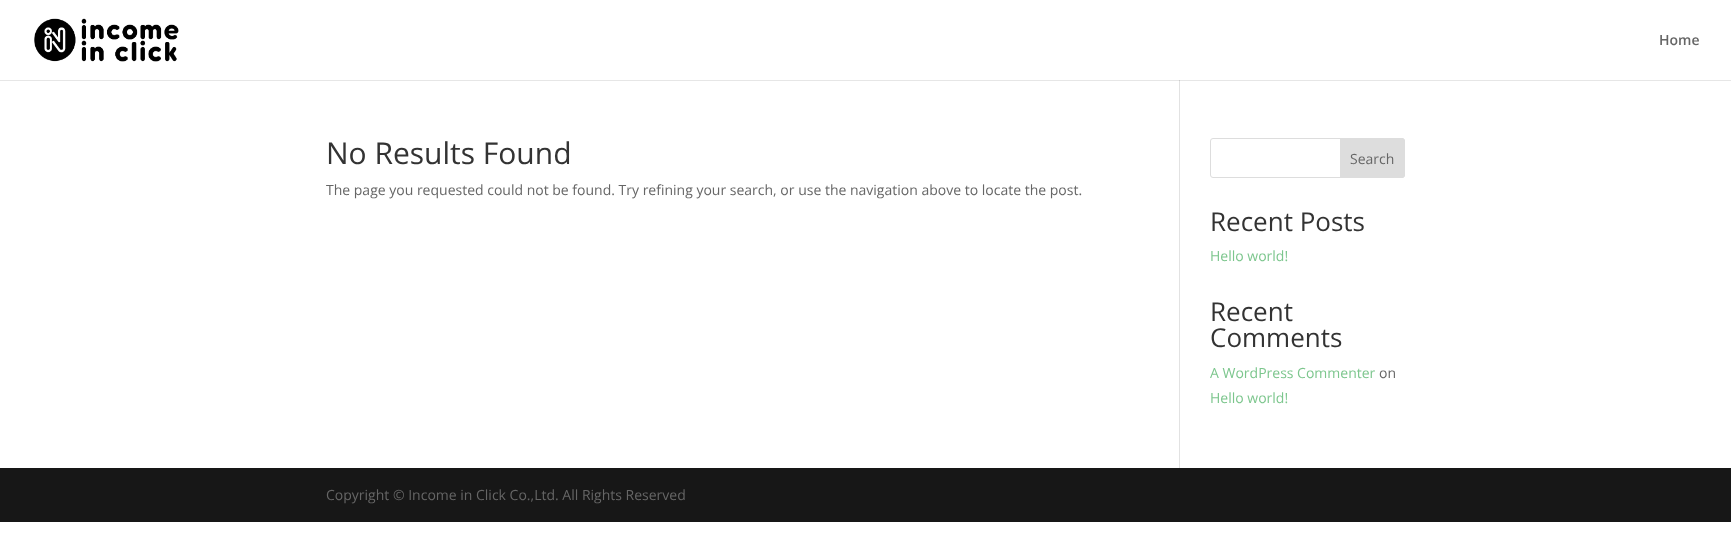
(async () => {
  const canvas = document.querySelector("canvas");
  canvas.width = 1731;
  canvas.height = 543;
  const ctx = canvas.getContext("2d");
  ctx.miterLimit = 4;
  ctx.fontKerning = "normal";
  async function loadImage(src) {
    const img = new Image();
    img.src = src;
    await img.decode();
    return img;
  }

  ctx.fillStyle = "#ffffff";
  ctx.fillRect(0, 0, 1731, 543);
  ctx.fillStyle = "#e6e6e6";
  ctx.fillRect(0, 80, 1731, 1);
  ctx.drawImage(await loadImage("img/1.png"), 34, 18, 145, 44);
  ctx.fillStyle = "#e2e2e2";
  ctx.fillRect(1179, 80, 1, 388);
  ctx.fillStyle = "#cbcbcb";
  ctx.fillRect(1179, 80, 1, 1);
  ctx.beginPath();
  ctx.roundRect(1210.5, 138.5, 194, 39, 2.5);
  ctx.strokeStyle = "#dddddd";
  ctx.stroke();
  ctx.fillStyle = "#dddddd";
  ctx.beginPath();
  ctx.roundRect(1340.5, 138.5, 64, 39, [0, 2.5, 2.5, 0]);
  ctx.fill();
  ctx.stroke();
  ctx.fillStyle = "#171717";
  ctx.fillRect(0, 468, 1731, 54);
  ctx.font = "600 14px Open Sans";
  ctx.fillStyle = "#666666";
  ctx.fillText("Home", 1659, 45);
  ctx.font = "30px Open Sans";
  ctx.fillStyle = "#333333";
  ctx.fillText("No Results Found", 326, 164);
  ctx.font = "14px Open Sans";
  ctx.fillStyle = "#666666";
  ctx.fillText("The page you requested could not be found. Try refining your search, or use the navigation above to locate the post.", 326, 195);
  ctx.fillText("Search", 1350, 164);
  ctx.font = "26px Open Sans";
  ctx.fillStyle = "#333333";
  ctx.fillText("Recent Posts", 1210, 231);
  ctx.font = "14px Open Sans";
  ctx.fillStyle = "#7cc68d";
  ctx.fillText("Hello world!", 1210, 261);
  ctx.font = "26px Open Sans";
  ctx.fillStyle = "#333333";
  ctx.fillText("Recent", 1210, 321);
  ctx.fillText("Comments", 1210, 347);
  ctx.font = "14px Open Sans";
  ctx.fillStyle = "#7cc68d";
  ctx.fillText("A WordPress Commenter", 1210, 378);
  ctx.fillStyle = "#666666";
  ctx.fillText("on", 1379, 378);
  ctx.fillStyle = "#7cc68d";
  ctx.fillText("Hello world!", 1210, 403);
  ctx.fillStyle = "#666666";
  ctx.fillText("Copyright © Income in Click Co.,Ltd. All Rights Reserved", 326, 500);
})();
